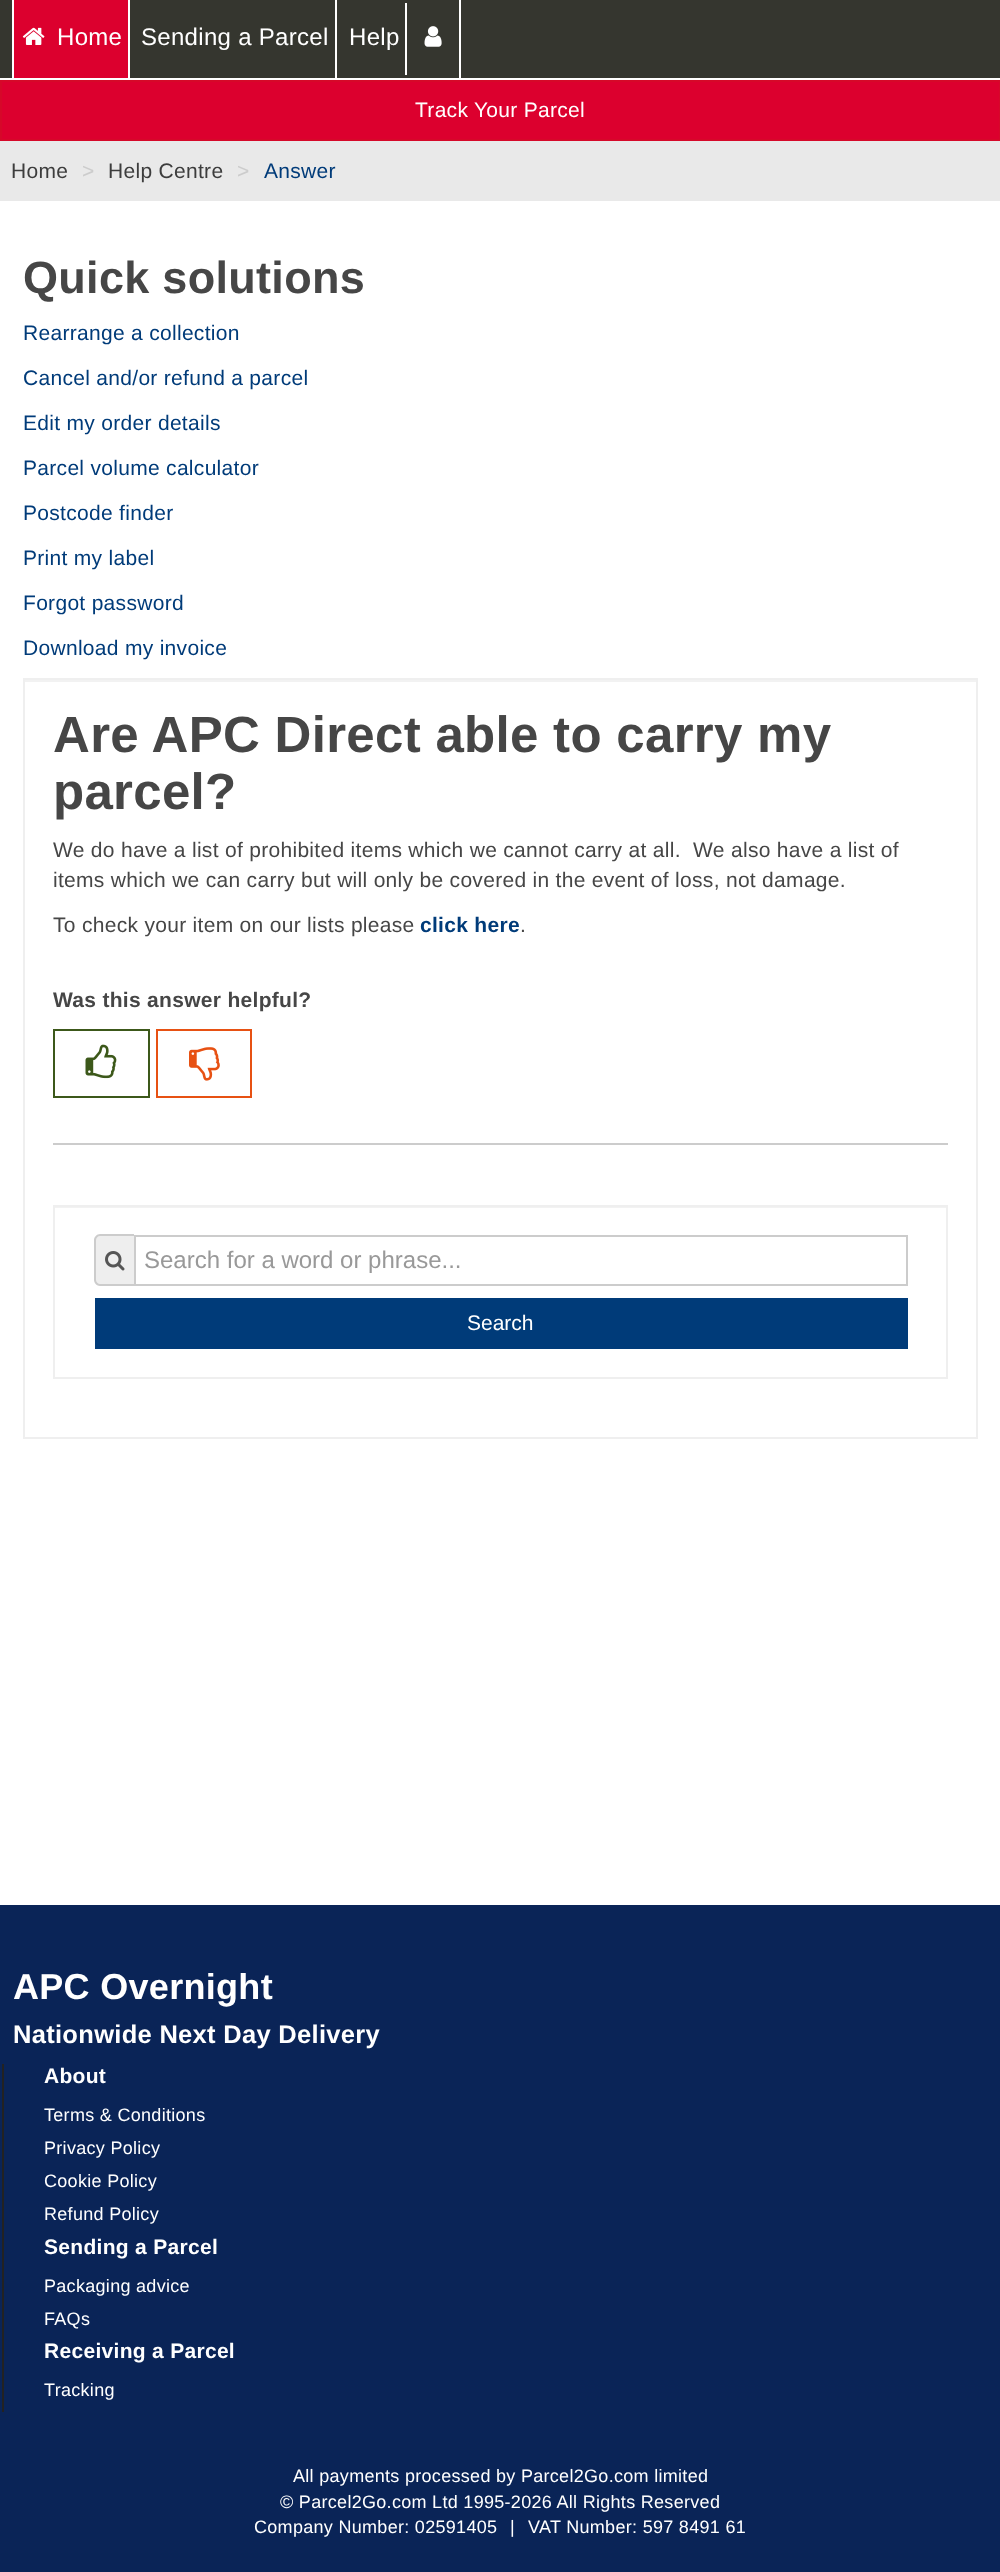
(async () => {
  const canvas = document.querySelector("canvas");
  canvas.width = 1000;
  canvas.height = 2572;
  const ctx = canvas.getContext("2d");
  ctx.miterLimit = 4;
  ctx.fontKerning = "normal";
  async function loadImage(src) {
    const img = new Image();
    img.src = src;
    await img.decode();
    return img;
  }
  let path;

  ctx.fillStyle = "#ffffff";
  ctx.fillRect(0, 0, 1000, 2572);
  for (const [x, y, w, h, color] of [
    [0, 0, 1000, 78, "#35362f"],
    [14, 0, 114, 78, "#dc002e"],
    [128, 0, 2, 78, "#ffffff"],
    [12, 0, 2, 78, "#ffffff"],
  ]) {
    ctx.fillStyle = color;
    ctx.fillRect(x, y, w, h);
  }
  ctx.drawImage(await loadImage("img/1.png"), 22, 27, 23, 18);
  for (const [x, y, w, h, color] of [
    [335, 0, 2, 78, "#ffffff"],
    [405, 3, 2, 72, "#ffffff"],
    [459, 0, 2, 78, "#ffffff"],
  ]) {
    ctx.fillStyle = color;
    ctx.fillRect(x, y, w, h);
  }
  ctx.drawImage(await loadImage("img/2.png"), 424, 26, 18, 21);
  ctx.fillStyle = "#dc002e";
  ctx.beginPath();
  ctx.rect(1, 81, 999, 59);
  ctx.fill();
  ctx.strokeStyle = "#d60829";
  ctx.lineWidth = 2;
  ctx.stroke();
  ctx.fillStyle = "#e9e9e9";
  ctx.fillRect(0, 141, 1000, 60);
  ctx.fillStyle = "#f2f2f2";
  ctx.fillRect(24, 680, 953, 2);
  ctx.strokeStyle = "#efefef";
  ctx.strokeRect(24, 679, 953, 759);
  ctx.strokeStyle = "#3c581a";
  ctx.strokeRect(54, 1030, 95, 67);
  ctx.drawImage(await loadImage("img/3.png"), 85, 1044, 32, 35);
  ctx.strokeStyle = "#e75113";
  ctx.strokeRect(157, 1030, 94, 67);
  ctx.drawImage(await loadImage("img/4.png"), 189, 1047, 31, 34);
  ctx.fillStyle = "#cccccc";
  ctx.fillRect(53, 1143, 895, 2);
  ctx.fillStyle = "#f2f2f2";
  ctx.fillRect(54, 1207, 893, 1);
  ctx.strokeStyle = "#efefef";
  ctx.strokeRect(54, 1206, 893, 172);
  ctx.fillStyle = "#eeeeee";
  ctx.beginPath();
  ctx.roundRect(95, 1235, 39, 51, [6, 0, 0, 6]);
  ctx.fill();
  ctx.fillStyle = "#cccccc";
  path = new Path2D("M100 1234H134V1286H100C97 1286 94 1283 94 1280V1240C94 1237 97 1234 100 1234ZM100 1236H134V1284H100C98 1284 96 1282 96 1280V1240C96 1238 98 1236 100 1236Z");
  ctx.fill(path, "evenodd");
  ctx.drawImage(await loadImage("img/5.png"), 105, 1251, 20, 20);
  ctx.strokeStyle = "#cccccc";
  ctx.strokeRect(135, 1236, 772, 49);
  for (const [x, y, w, h, color] of [
    [95, 1298, 813, 51, "#003b79"],
    [0, 1905, 1000, 667, "#0a2457"],
    [2, 2064, 2, 348, "#222222"],
  ]) {
    ctx.fillStyle = color;
    ctx.fillRect(x, y, w, h);
  }
  ctx.letterSpacing = "0.3px";
  ctx.font = "24px Liberation Sans";
  ctx.fillStyle = "#ffffff";
  for (const [text, x, y] of [
    ["Home", 57, 45],
    ["Sending a Parcel", 141, 45],
    ["Help", 349, 45],
  ]) {
    ctx.fillText(text, x, y);
  }
  ctx.font = "21px Liberation Sans";
  ctx.fillText("Track Your Parcel", 415, 117);
  ctx.fillStyle = "#3d3d3d";
  ctx.fillText("Home", 11, 178);
  ctx.fillStyle = "#cccccc";
  ctx.fillText(">", 82, 178);
  ctx.fillStyle = "#3d3d3d";
  ctx.fillText("Help Centre", 108, 178);
  ctx.fillStyle = "#cccccc";
  ctx.fillText(">", 237, 178);
  ctx.fillStyle = "#003b79";
  ctx.fillText("Answer", 264, 178);
  ctx.font = "bold 45px Liberation Sans";
  ctx.fillStyle = "#464646";
  ctx.fillText("Quick solutions", 23, 293);
  ctx.font = "21px Liberation Sans";
  ctx.fillStyle = "#003b79";
  for (const [text, x, y] of [
    ["Rearrange a collection", 23, 340],
    ["Cancel and/or refund a parcel", 23, 385],
    ["Edit my order details", 23, 430],
    ["Parcel volume calculator", 23, 475],
    ["Postcode finder", 23, 520],
    ["Print my label", 23, 565],
    ["Forgot password", 23, 610],
    ["Download my invoice", 23, 655],
  ]) {
    ctx.fillText(text, x, y);
  }
  ctx.font = "bold 51px Liberation Sans";
  ctx.fillStyle = "#464646";
  ctx.fillText("Are APC Direct able to carry my", 53, 752);
  ctx.fillText("parcel?", 53, 809);
  ctx.font = "21px Liberation Sans";
  for (const [text, x, y] of [
    ["We do have a list of prohibited items which we cannot carry at all.  We also have a list of", 53, 857],
    ["items which we can carry but will only be covered in the event of loss, not damage.", 53, 887],
    ["To check your item on our lists please", 53, 932],
  ]) {
    ctx.fillText(text, x, y);
  }
  ctx.font = "bold 21px Liberation Sans";
  ctx.fillStyle = "#003b79";
  ctx.fillText("click here", 420, 932);
  ctx.font = "21px Liberation Sans";
  ctx.fillStyle = "#464646";
  ctx.fillText(".", 520, 932);
  ctx.font = "bold 21px Liberation Sans";
  ctx.fillText("Was this answer helpful?", 53, 1007);
  ctx.letterSpacing = "0px";
  ctx.font = "24px Liberation Sans";
  ctx.fillStyle = "#999999";
  ctx.fillText("Search for a word or phrase...", 144, 1268);
  ctx.font = "21px Liberation Sans";
  ctx.fillStyle = "#ffffff";
  ctx.fillText("Search", 467, 1330);
  ctx.letterSpacing = "0.3px";
  ctx.font = "bold 36px Liberation Sans";
  ctx.fillText("APC Overnight", 13, 1999);
  ctx.font = "bold 25.5px Liberation Sans";
  ctx.fillText("Nationwide Next Day Delivery", 13, 2043);
  ctx.font = "bold 21px Liberation Sans";
  ctx.fillText("About", 44, 2083);
  ctx.font = "18px Liberation Sans";
  for (const [text, x, y] of [
    ["Terms & Conditions", 44, 2121],
    ["Privacy Policy", 44, 2154],
    ["Cookie Policy", 44, 2187],
    ["Refund Policy", 44, 2220],
  ]) {
    ctx.fillText(text, x, y);
  }
  ctx.font = "bold 21px Liberation Sans";
  ctx.fillText("Sending a Parcel", 44, 2254);
  ctx.font = "18px Liberation Sans";
  ctx.fillText("Packaging advice", 44, 2292);
  ctx.fillText("FAQs", 44, 2325);
  ctx.font = "bold 21px Liberation Sans";
  ctx.fillText("Receiving a Parcel", 44, 2358);
  ctx.font = "18px Liberation Sans";
  for (const [text, x, y] of [
    ["Tracking", 44, 2396],
    ["All payments processed by Parcel2Go.com limited", 293, 2482],
    ["© Parcel2Go.com Ltd 1995-2026 All Rights Reserved", 280, 2508],
    ["Company Number: 02591405", 254, 2533],
    ["|", 510, 2533],
    ["VAT Number: 597 8491 61", 528, 2533],
  ]) {
    ctx.fillText(text, x, y);
  }
})();
